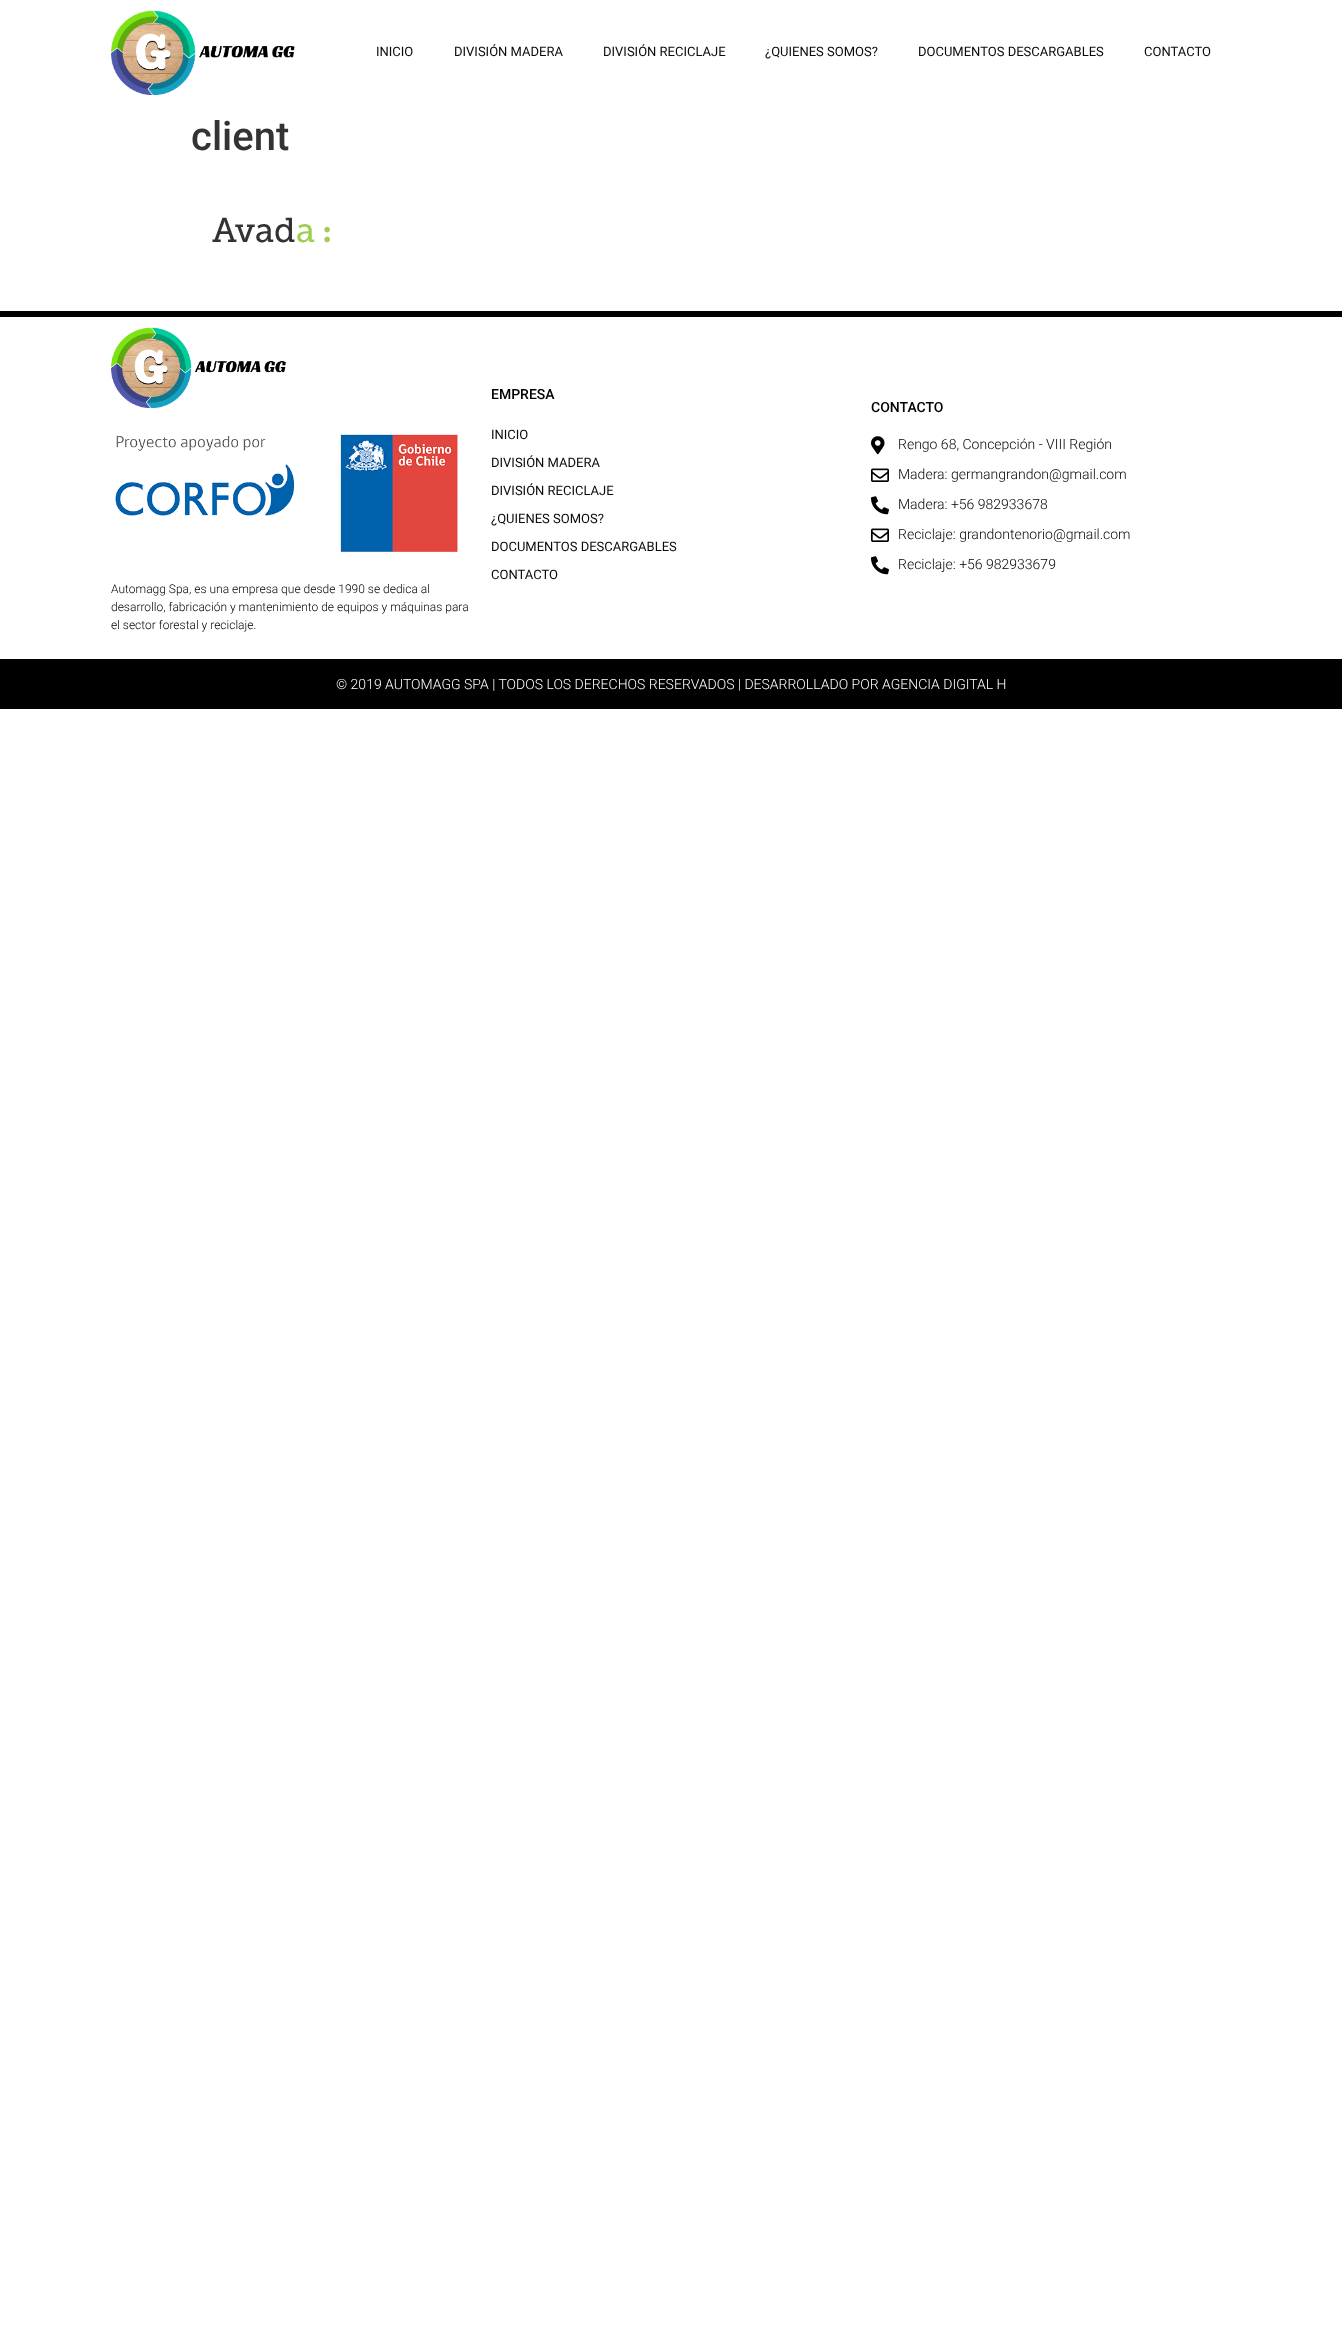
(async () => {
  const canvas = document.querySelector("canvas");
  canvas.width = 1342;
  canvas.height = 2330;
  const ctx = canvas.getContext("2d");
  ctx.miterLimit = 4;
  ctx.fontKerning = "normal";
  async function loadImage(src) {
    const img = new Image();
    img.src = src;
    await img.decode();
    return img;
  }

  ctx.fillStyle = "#ffffff";
  ctx.fillRect(0, 0, 1342, 2330);
  ctx.drawImage(await loadImage("img/1.png"), 111, 10, 184, 85);
  ctx.drawImage(await loadImage("img/2.png"), 212, 217, 118, 26);
  ctx.fillStyle = "#000000";
  ctx.fillRect(0, 311, 1342, 6);
  ctx.drawImage(await loadImage("img/3.png"), 871, 436, 14, 19);
  ctx.drawImage(await loadImage("img/4.png"), 871, 468, 18, 14);
  ctx.drawImage(await loadImage("img/5.png"), 871, 496, 18, 19);
  ctx.drawImage(await loadImage("img/4.png"), 871, 528, 18, 14);
  ctx.drawImage(await loadImage("img/5.png"), 871, 556, 18, 19);
  ctx.drawImage(await loadImage("img/6.png"), 111, 327, 175, 81);
  ctx.drawImage(await loadImage("img/7.png"), 115, 434, 343, 118);
  ctx.fillRect(0, 659, 1342, 50);
  ctx.font = "13px Roboto";
  ctx.fillStyle = "#0a0a0a";
  for (const [text, x, y] of [
    ["INICIO", 376, 56],
    ["DIVISIÓN MADERA", 454, 56],
    ["DIVISIÓN RECICLAJE", 603, 56],
    ["¿QUIENES SOMOS?", 765, 56],
    ["DOCUMENTOS DESCARGABLES", 918, 56],
    ["CONTACTO", 1144, 56],
  ]) {
    ctx.fillText(text, x, y);
  }
  ctx.font = "500 40px Roboto";
  ctx.fillStyle = "#333333";
  ctx.fillText("client", 191, 150);
  ctx.font = "500 14px Roboto";
  ctx.fillStyle = "#000000";
  ctx.fillText("EMPRESA", 491, 399);
  ctx.font = "13px Roboto";
  ctx.fillStyle = "#0a0a0a";
  for (const [text, x, y] of [
    ["INICIO", 491, 439],
    ["DIVISIÓN MADERA", 491, 467],
    ["DIVISIÓN RECICLAJE", 491, 495],
    ["¿QUIENES SOMOS?", 491, 523],
    ["DOCUMENTOS DESCARGABLES", 491, 551],
    ["CONTACTO", 491, 579],
  ]) {
    ctx.fillText(text, x, y);
  }
  ctx.font = "500 14px Roboto";
  ctx.fillStyle = "#000000";
  ctx.fillText("CONTACTO", 871, 412);
  ctx.font = "300 14px Roboto";
  for (const [text, x, y] of [
    ["Rengo 68, Concepción - VIII Región", 898, 449],
    ["Madera: germangrandon@gmail.com", 898, 479],
    ["Madera: +56 982933678", 898, 509],
    ["Reciclaje: grandontenorio@gmail.com", 898, 539],
    ["Reciclaje: +56 982933679", 898, 569],
  ]) {
    ctx.fillText(text, x, y);
  }
  ctx.font = "300 12px Roboto";
  for (const [text, x, y] of [
    ["Automagg Spa, es una empresa que desde 1990 se dedica al", 111, 593],
    ["desarrollo, fabricación y mantenimiento de equipos y máquinas para", 111, 611],
    ["el sector forestal y reciclaje.", 111, 629],
  ]) {
    ctx.fillText(text, x, y);
  }
  ctx.font = "300 14px Roboto";
  ctx.fillStyle = "#ffffff";
  ctx.fillText("© 2019 AUTOMAGG SPA | TODOS LOS DERECHOS RESERVADOS | DESARROLLADO POR AGENCIA DIGITAL H", 336, 689);
})();
